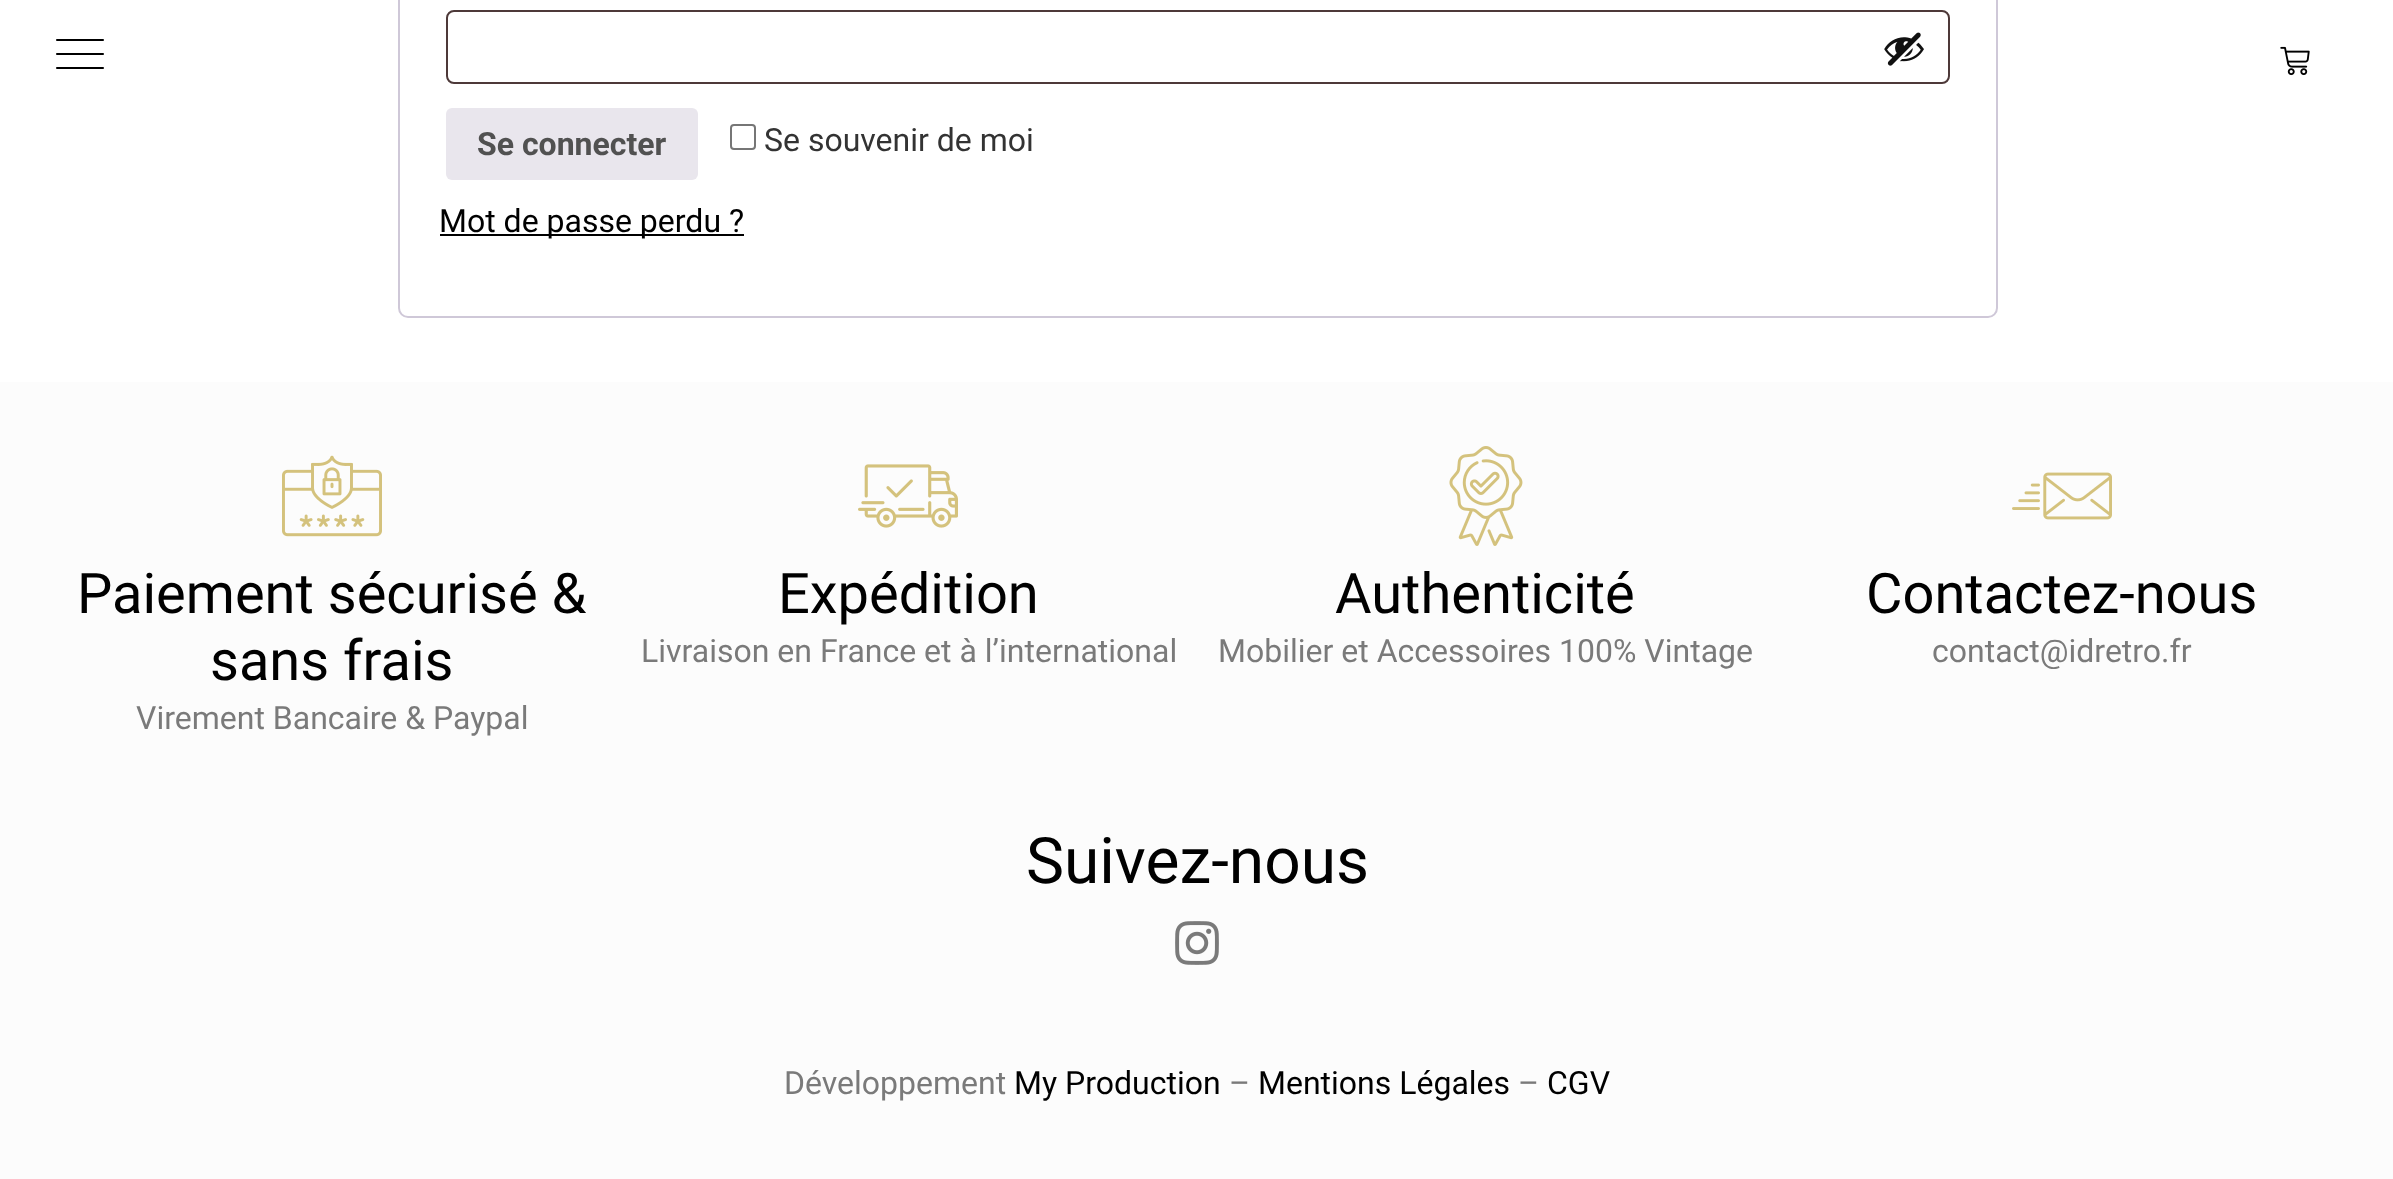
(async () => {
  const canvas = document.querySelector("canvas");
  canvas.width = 2393;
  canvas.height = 1179;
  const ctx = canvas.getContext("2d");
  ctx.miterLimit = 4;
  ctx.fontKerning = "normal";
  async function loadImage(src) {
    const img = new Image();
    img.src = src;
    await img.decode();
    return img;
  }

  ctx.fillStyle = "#ffffff";
  ctx.fillRect(0, 0, 2393, 1179);
  ctx.drawImage(await loadImage("img/1.png"), 56, 39, 48, 30);
  ctx.drawImage(await loadImage("img/2.png"), 2280, 46, 30, 30);
  ctx.beginPath();
  ctx.roundRect(399, -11, 1598, 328, 9);
  ctx.strokeStyle = "#cfc8d8";
  ctx.lineWidth = 2;
  ctx.stroke();
  ctx.beginPath();
  ctx.roundRect(447, 11, 1502, 72, 7);
  ctx.strokeStyle = "#4d3939";
  ctx.stroke();
  ctx.drawImage(await loadImage("img/3.png"), 1884, 32, 40, 34);
  ctx.fillStyle = "#e9e6ed";
  ctx.beginPath();
  ctx.roundRect(446, 108, 252, 72, 6);
  ctx.fill();
  ctx.beginPath();
  ctx.roundRect(731, 125, 24, 24, 3);
  ctx.strokeStyle = "#767676";
  ctx.stroke();
  ctx.fillStyle = "#000000";
  ctx.fillRect(440, 234, 304, 2);
  ctx.fillStyle = "#fcfcfc";
  ctx.fillRect(0, 382, 2393, 797);
  ctx.drawImage(await loadImage("img/4.png"), 282, 455, 100, 82);
  ctx.drawImage(await loadImage("img/5.png"), 858, 464, 100, 64);
  ctx.drawImage(await loadImage("img/6.png"), 1449, 446, 74, 100);
  ctx.drawImage(await loadImage("img/7.png"), 2012, 472, 100, 48);
  ctx.drawImage(await loadImage("img/8.png"), 1175, 921, 44, 44);
  ctx.font = "bold 32px Roboto";
  ctx.fillStyle = "#515151";
  ctx.fillText("Se connecter", 477, 155);
  ctx.font = "32px Roboto";
  ctx.fillStyle = "#333333";
  ctx.fillText("Se souvenir de moi", 764, 151);
  ctx.fillStyle = "#000000";
  ctx.fillText("Mot de passe perdu ?", 439, 232);
  ctx.font = "56px Roboto";
  ctx.fillText("Paiement sécurisé &", 77, 613);
  ctx.fillText("sans frais", 210, 680);
  ctx.font = "32px Roboto";
  ctx.fillStyle = "#7a7a7a";
  ctx.fillText("Virement Bancaire & Paypal", 136, 729);
  ctx.font = "56px Roboto";
  ctx.fillStyle = "#000000";
  ctx.fillText("Expédition", 778, 613);
  ctx.font = "32px Roboto";
  ctx.fillStyle = "#7a7a7a";
  ctx.fillText("Livraison en France et à l’international", 641, 662);
  ctx.font = "56px Roboto";
  ctx.fillStyle = "#000000";
  ctx.fillText("Authenticité", 1335, 613);
  ctx.font = "32px Roboto";
  ctx.fillStyle = "#7a7a7a";
  ctx.fillText("Mobilier et Accessoires 100% Vintage", 1218, 662);
  ctx.font = "56px Roboto";
  ctx.fillStyle = "#000000";
  ctx.fillText("Contactez-nous", 1866, 613);
  ctx.font = "32px Roboto";
  ctx.fillStyle = "#7a7a7a";
  ctx.fillText("contact@idretro.fr", 1932, 662);
  ctx.font = "64px Roboto";
  ctx.fillStyle = "#000000";
  ctx.fillText("Suivez-nous", 1026, 883);
  ctx.font = "32px Roboto";
  ctx.fillStyle = "#7a7a7a";
  ctx.fillText("Développement", 784, 1094);
  ctx.fillStyle = "#000000";
  ctx.fillText("My Production", 1014, 1094);
  ctx.fillStyle = "#7a7a7a";
  ctx.fillText("–", 1229, 1094);
  ctx.fillStyle = "#000000";
  ctx.fillText("Mentions Légales", 1258, 1094);
  ctx.fillStyle = "#7a7a7a";
  ctx.fillText("–", 1518, 1094);
  ctx.fillStyle = "#000000";
  ctx.fillText("CGV", 1547, 1094);
})();
